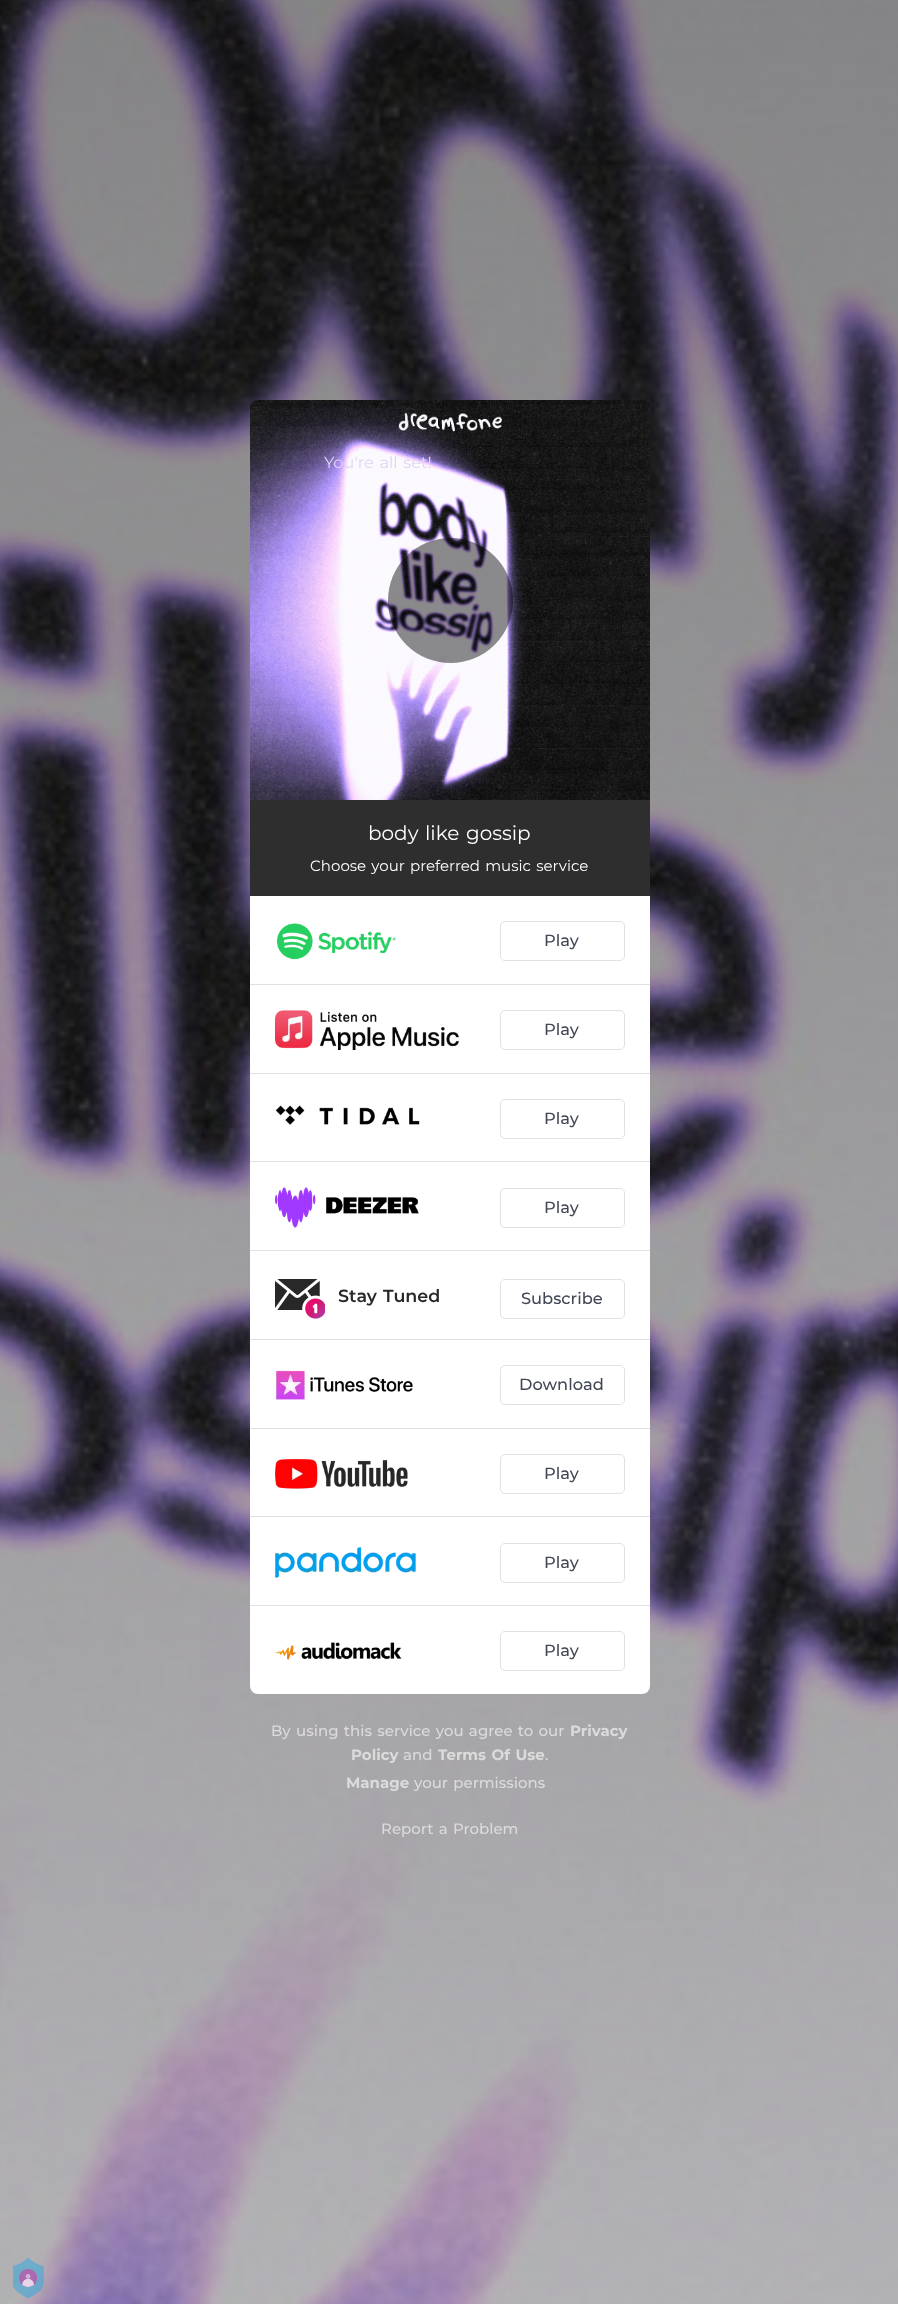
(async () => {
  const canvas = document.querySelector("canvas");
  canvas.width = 898;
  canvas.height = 2304;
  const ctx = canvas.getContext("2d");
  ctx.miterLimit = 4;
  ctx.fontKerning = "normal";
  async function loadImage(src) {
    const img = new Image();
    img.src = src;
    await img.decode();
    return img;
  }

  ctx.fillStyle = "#ffffff";
  ctx.fillRect(0, 0, 898, 2304);
  ctx.drawImage(await loadImage("img/1.png"), 0, 0, 898, 2304);
  ctx.drawImage(await loadImage("img/2.png"), 250, 400, 400, 400);
  ctx.fillStyle = "rgba(0, 0, 0, 0.45)";
  ctx.beginPath();
  ctx.arc(450.5, 600.5, 62.5, 0, Math.PI * 2);
  ctx.fill();
  ctx.fillStyle = "#2e2e2e";
  ctx.fillRect(250, 800, 400, 96);
  ctx.fillStyle = "#ffffff";
  ctx.beginPath();
  ctx.roundRect(250, 896, 400, 798, [0, 0, 8, 8]);
  ctx.fill();
  ctx.fillStyle = "#e1e1e4";
  ctx.fillRect(250, 984, 400, 1);
  ctx.drawImage(await loadImage("img/3.png"), 276, 923, 121, 37);
  ctx.beginPath();
  ctx.roundRect(500.5, 921.5, 124, 39, 4.5);
  ctx.strokeStyle = "#e1e1e4";
  ctx.stroke();
  ctx.fillRect(250, 1073, 400, 1);
  ctx.drawImage(await loadImage("img/4.png"), 275, 1010, 184, 40);
  ctx.beginPath();
  ctx.roundRect(500.5, 1010.5, 124, 39, 4.5);
  ctx.stroke();
  ctx.fillRect(250, 1161, 400, 1);
  ctx.drawImage(await loadImage("img/5.png"), 275, 1105, 145, 20);
  ctx.beginPath();
  ctx.roundRect(500.5, 1099.5, 124, 39, 4.5);
  ctx.stroke();
  ctx.fillRect(250, 1250, 400, 1);
  ctx.drawImage(await loadImage("img/6.png"), 275, 1187, 144, 41);
  ctx.beginPath();
  ctx.roundRect(500.5, 1188.5, 124, 39, 4.5);
  ctx.stroke();
  ctx.fillRect(250, 1339, 400, 1);
  ctx.drawImage(await loadImage("img/7.png"), 275, 1279, 50, 40);
  ctx.beginPath();
  ctx.roundRect(500.5, 1279.5, 124, 39, 4.5);
  ctx.stroke();
  ctx.fillRect(250, 1428, 400, 1);
  ctx.drawImage(await loadImage("img/8.png"), 276, 1370, 137, 30);
  ctx.beginPath();
  ctx.roundRect(500.5, 1365.5, 124, 39, 4.5);
  ctx.stroke();
  ctx.fillRect(250, 1516, 400, 1);
  ctx.drawImage(await loadImage("img/9.png"), 275, 1458, 133, 31);
  ctx.beginPath();
  ctx.roundRect(500.5, 1454.5, 124, 39, 4.5);
  ctx.stroke();
  ctx.fillRect(250, 1605, 400, 1);
  ctx.drawImage(await loadImage("img/10.png"), 275, 1547, 143, 31);
  ctx.beginPath();
  ctx.roundRect(500.5, 1543.5, 124, 39, 4.5);
  ctx.stroke();
  ctx.drawImage(await loadImage("img/11.png"), 275, 1642, 127, 18);
  ctx.beginPath();
  ctx.roundRect(500.5, 1631.5, 124, 39, 4.5);
  ctx.stroke();
  ctx.drawImage(await loadImage("img/12.png"), 13, 2258, 31, 41);
  ctx.wordSpacing = "1.25px";
  ctx.font = "16.25px Montserrat";
  ctx.fillStyle = "#e0d6f2";
  ctx.fillText("You're all set!", 324, 468);
  ctx.font = "20px Montserrat";
  ctx.fillStyle = "#ffffff";
  ctx.fillText("body like gossip", 368, 840);
  ctx.font = "15px Montserrat";
  ctx.fillText("Choose your preferred music service", 310, 871);
  ctx.wordSpacing = "0px";
  ctx.font = "500 16.25px Montserrat";
  ctx.fillStyle = "#414754";
  for (const [text, x, y] of [
    ["Play", 544, 946],
    ["Play", 544, 1035],
    ["Play", 544, 1124],
    ["Play", 544, 1213],
  ]) {
    ctx.fillText(text, x, y);
  }
  ctx.wordSpacing = "1.25px";
  ctx.font = "600 17.5px Montserrat";
  ctx.fillStyle = "#282828";
  ctx.fillText("Stay Tuned", 338, 1302);
  ctx.wordSpacing = "0px";
  ctx.font = "500 16.25px Montserrat";
  ctx.fillStyle = "#414754";
  for (const [text, x, y] of [
    ["Subscribe", 521, 1304],
    ["Download", 519, 1390],
    ["Play", 544, 1479],
    ["Play", 544, 1568],
    ["Play", 544, 1656],
  ]) {
    ctx.fillText(text, x, y);
  }
  ctx.wordSpacing = "1.25px";
  ctx.font = "500 15px Montserrat";
  ctx.fillStyle = "#dcdbdc";
  ctx.fillText("By using this service you agree to our", 271, 1736);
  ctx.wordSpacing = "0px";
  ctx.font = "bold 15px Montserrat";
  ctx.fillText("Privacy", 570, 1736);
  ctx.fillText("Policy", 351, 1760);
  ctx.font = "500 15px Montserrat";
  ctx.fillText("and", 403, 1760);
  ctx.wordSpacing = "1.25px";
  ctx.font = "bold 15px Montserrat";
  ctx.fillText("Terms Of Use", 438, 1760);
  ctx.wordSpacing = "0px";
  ctx.font = "500 15px Montserrat";
  ctx.fillText(".", 545, 1760);
  ctx.font = "bold 15px Montserrat";
  ctx.fillText("Manage", 346, 1788);
  ctx.wordSpacing = "1.25px";
  ctx.font = "500 15px Montserrat";
  ctx.fillText("your permissions", 414, 1788);
  ctx.fillText("Report a Problem", 381, 1834);
})();
